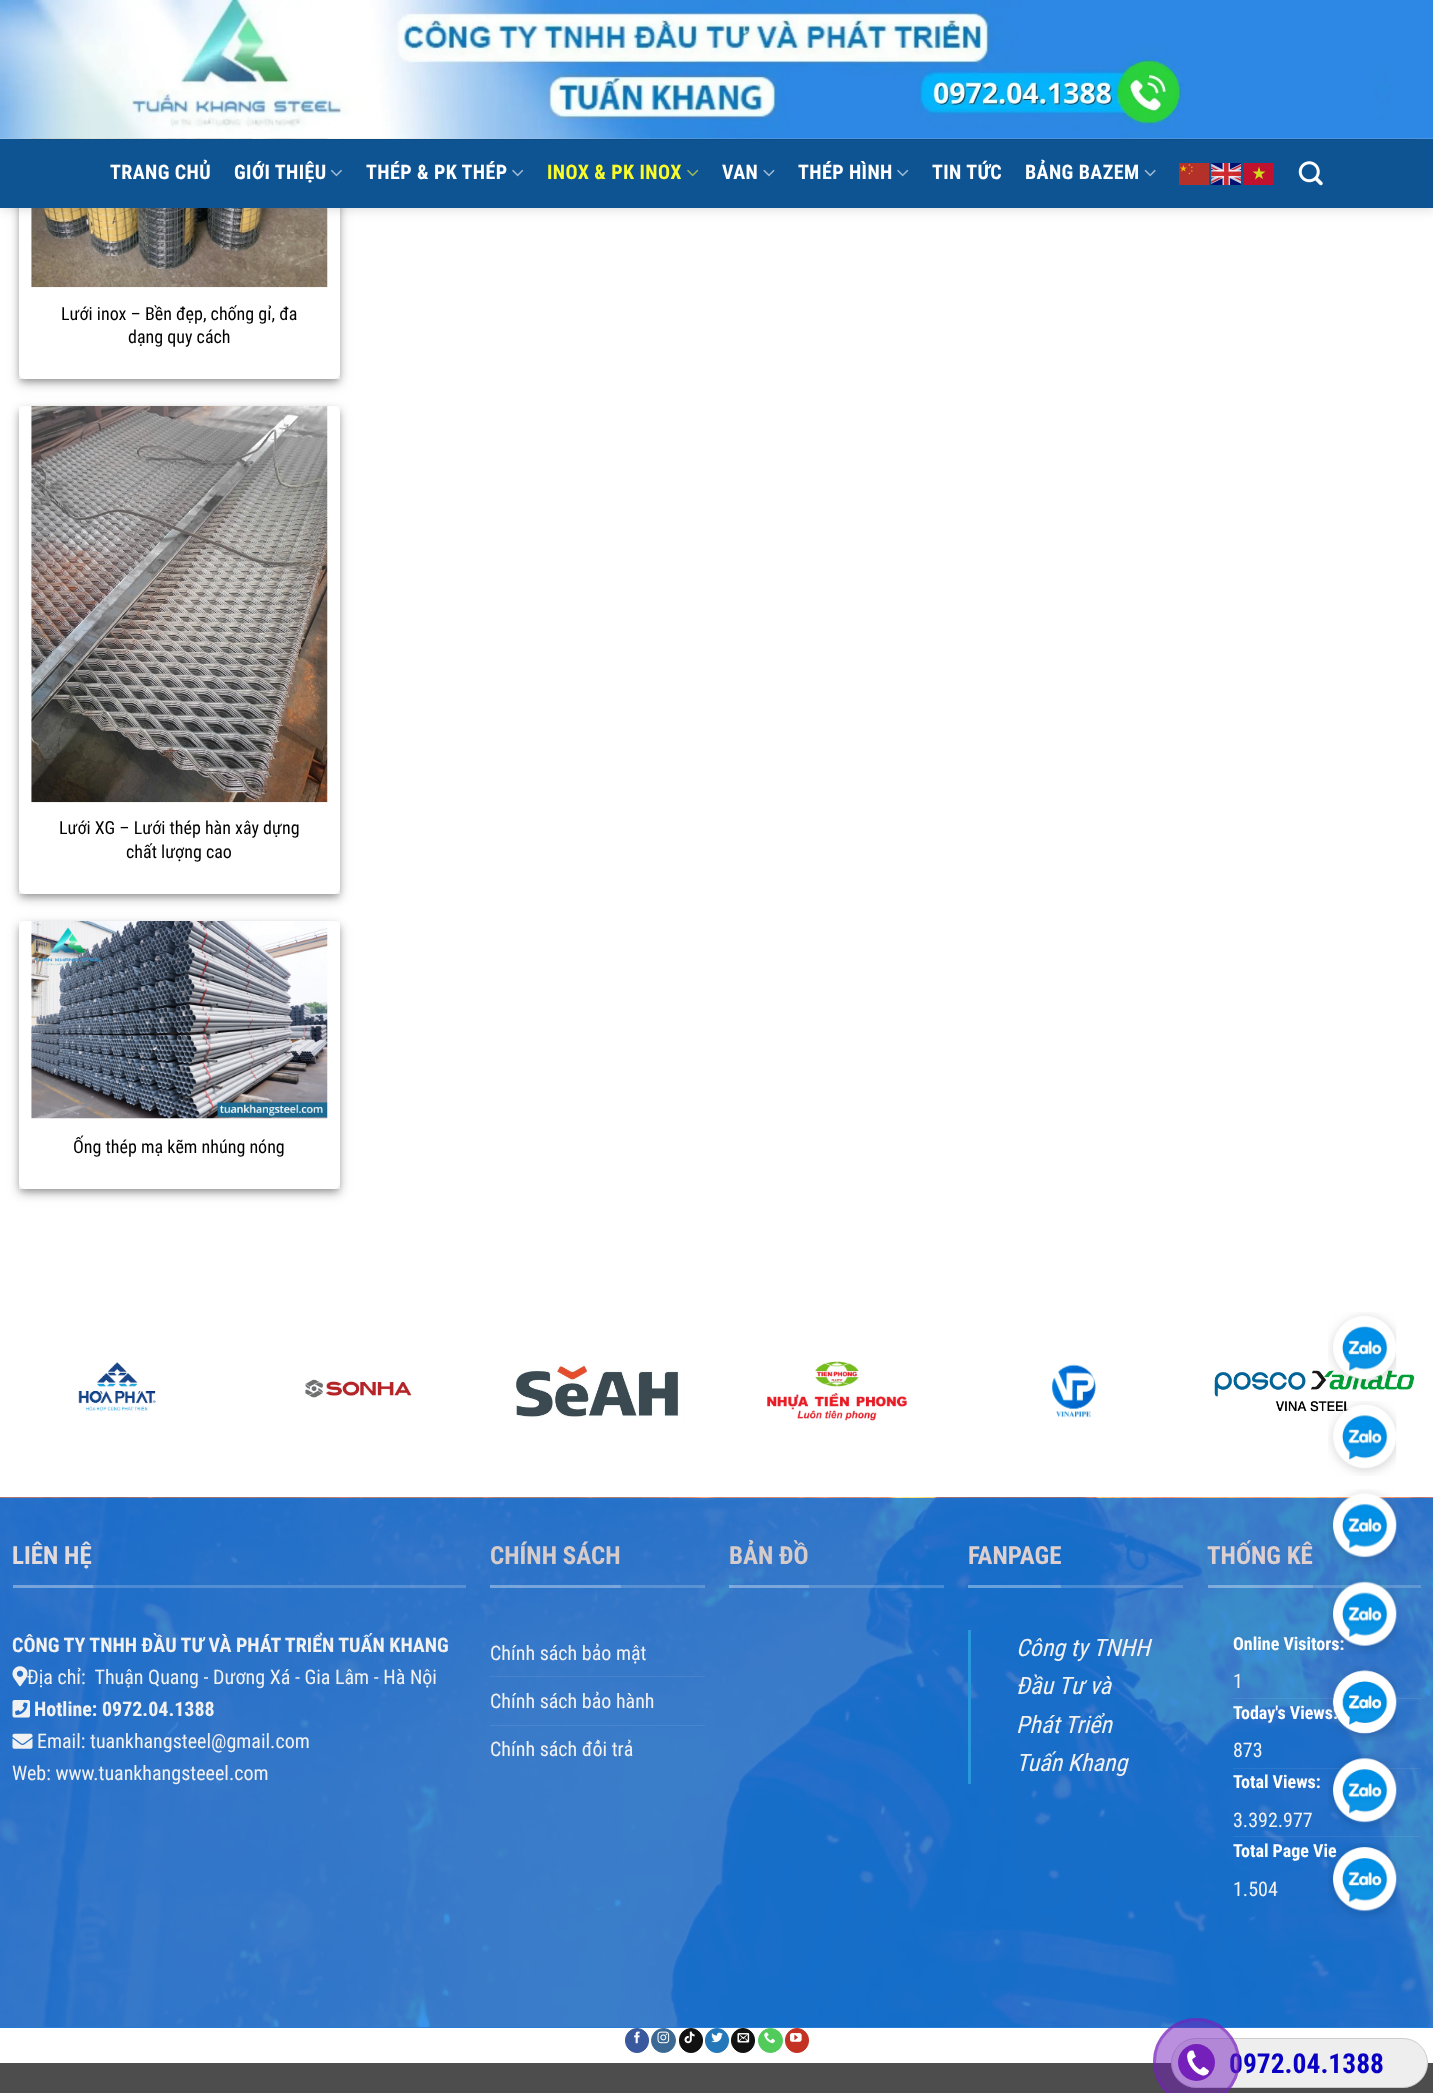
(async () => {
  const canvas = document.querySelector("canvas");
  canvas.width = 1433;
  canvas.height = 2093;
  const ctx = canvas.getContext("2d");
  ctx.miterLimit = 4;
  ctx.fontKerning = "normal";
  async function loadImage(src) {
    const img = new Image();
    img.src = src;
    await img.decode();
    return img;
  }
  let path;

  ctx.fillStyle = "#ffffff";
  ctx.fillRect(0, 0, 1433, 2093);
  ctx.fillStyle = "rgba(0, 0, 0, 0.23)";
  ctx.filter = "blur(4px)";
  ctx.beginPath();
  ctx.rect(19, -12, 321, 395);
  ctx.fill();
  ctx.filter = "none";
  ctx.fillStyle = "rgba(0, 0, 0, 0.16)";
  ctx.filter = "blur(4px)";
  ctx.beginPath();
  ctx.rect(24, -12, 311, 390);
  ctx.fill();
  ctx.filter = "none";
  ctx.fillStyle = "#ffffff";
  ctx.fillRect(19, 373, 321, 6);
  ctx.fillStyle = "rgba(0, 0, 0, 0.08)";
  ctx.filter = "blur(7.5px)";
  ctx.beginPath();
  ctx.roundRect(19, -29, 321, 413, 6);
  ctx.fill();
  ctx.filter = "none";
  ctx.filter = "blur(2.5px)";
  ctx.beginPath();
  ctx.roundRect(19, -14, 321, 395, 6);
  ctx.fill();
  ctx.filter = "none";
  ctx.fillStyle = "#ffffff";
  ctx.beginPath();
  ctx.roundRect(19, -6, 321, 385, 6);
  ctx.fill();
  ctx.drawImage(await loadImage("img/10.png"), 31, 138, 297, 150);
  ctx.fillStyle = "rgba(0, 0, 0, 0.15)";
  ctx.filter = "blur(6px)";
  ctx.beginPath();
  ctx.rect(1, 1, 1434, 208);
  ctx.fill();
  ctx.filter = "none";
  ctx.drawImage(await loadImage("img/1.png"), 0, 0, 1433, 139);
  ctx.fillStyle = "#0e5392";
  ctx.fillRect(0, 139, 1433, 69);
  ctx.fillStyle = "#0d4b83";
  ctx.fillRect(19, 139, 1396, 1);
  ctx.drawImage(await loadImage("img/2.png"), 330, 169, 12, 8);
  ctx.drawImage(await loadImage("img/3.png"), 512, 169, 12, 8);
  ctx.drawImage(await loadImage("img/4.png"), 687, 169, 12, 8);
  ctx.drawImage(await loadImage("img/5.png"), 763, 169, 12, 8);
  ctx.drawImage(await loadImage("img/3.png"), 897, 169, 12, 8);
  ctx.drawImage(await loadImage("img/6.png"), 1144, 169, 12, 8);
  ctx.drawImage(await loadImage("img/7.png"), 1179, 163, 30, 22);
  ctx.drawImage(await loadImage("img/8.png"), 1211, 163, 30, 22);
  ctx.fillStyle = "#c0112e";
  ctx.fillRect(1244, 163, 30, 22);
  ctx.fillStyle = "#cfdd1d";
  path = new Path2D("M1263 179L1259 176.5L1255 179.5L1256.5 174.5L1252.5 171.5H1257.5L1259 166.5L1260.5 171.5H1265.5L1261.5 174.5Z");
  ctx.fill(path, "evenodd");
  ctx.drawImage(await loadImage("img/9.png"), 1298, 161, 25, 25);
  ctx.fillStyle = "rgba(0, 0, 0, 0.23)";
  ctx.filter = "blur(4px)";
  ctx.beginPath();
  ctx.rect(19, 410, 321, 488);
  ctx.fill();
  ctx.filter = "none";
  ctx.fillStyle = "rgba(0, 0, 0, 0.16)";
  ctx.filter = "blur(4px)";
  ctx.beginPath();
  ctx.rect(24, 415, 311, 478);
  ctx.fill();
  ctx.filter = "none";
  ctx.fillStyle = "#ffffff";
  ctx.fillRect(19, 406, 321, 488);
  ctx.fillStyle = "rgba(0, 0, 0, 0.08)";
  ctx.filter = "blur(7.5px)";
  ctx.beginPath();
  ctx.roundRect(19, 411, 321, 488, 6);
  ctx.fill();
  ctx.filter = "none";
  ctx.filter = "blur(2.5px)";
  ctx.beginPath();
  ctx.roundRect(19, 409, 321, 487, 6);
  ctx.fill();
  ctx.filter = "none";
  ctx.fillStyle = "#ffffff";
  ctx.beginPath();
  ctx.roundRect(19, 406, 321, 488, 6);
  ctx.fill();
  ctx.drawImage(await loadImage("img/11.png"), 31, 406, 297, 397);
  ctx.fillStyle = "rgba(0, 0, 0, 0.23)";
  ctx.filter = "blur(4px)";
  ctx.beginPath();
  ctx.rect(19, 925, 321, 268);
  ctx.fill();
  ctx.filter = "none";
  ctx.fillStyle = "rgba(0, 0, 0, 0.16)";
  ctx.filter = "blur(4px)";
  ctx.beginPath();
  ctx.rect(24, 930, 311, 258);
  ctx.fill();
  ctx.filter = "none";
  ctx.fillStyle = "#ffffff";
  ctx.fillRect(19, 921, 321, 268);
  ctx.fillStyle = "rgba(0, 0, 0, 0.08)";
  ctx.filter = "blur(7.5px)";
  ctx.beginPath();
  ctx.roundRect(19, 926, 321, 268, 6);
  ctx.fill();
  ctx.filter = "none";
  ctx.filter = "blur(2.5px)";
  ctx.beginPath();
  ctx.roundRect(19, 924, 321, 267, 6);
  ctx.fill();
  ctx.filter = "none";
  ctx.fillStyle = "#ffffff";
  ctx.beginPath();
  ctx.roundRect(19, 921, 321, 268, 6);
  ctx.fill();
  ctx.drawImage(await loadImage("img/12.png"), 31, 921, 297, 198);
  ctx.drawImage(await loadImage("img/13.png"), 78, 1362, 78, 50);
  ctx.drawImage(await loadImage("img/14.png"), 305, 1379, 107, 19);
  ctx.drawImage(await loadImage("img/15.png"), 514, 1364, 171, 58);
  ctx.drawImage(await loadImage("img/16.png"), 767, 1361, 140, 60);
  ctx.drawImage(await loadImage("img/17.png"), 1051, 1364, 45, 54);
  ctx.drawImage(await loadImage("img/18.png"), 1214, 1370, 201, 42);
  ctx.fillStyle = "#247dd8";
  ctx.fillRect(0, 2027, 1433, 1);
  ctx.drawImage(await loadImage("img/19.png"), 0, 1497, 1433, 531);
  ctx.fillStyle = "rgba(255, 255, 255, 0.2)";
  ctx.fillRect(13, 1585, 453, 3);
  ctx.fillRect(13, 1585, 80, 3);
  ctx.drawImage(await loadImage("img/20.png"), 12, 1666, 16, 21);
  ctx.drawImage(await loadImage("img/21.png"), 12, 1700, 18, 18);
  ctx.drawImage(await loadImage("img/22.png"), 12, 1733, 21, 16);
  for (const [x, y, w, h, color] of [
    [490, 1585, 215, 3, "rgba(255, 255, 255, 0.2)"],
    [490, 1585, 131, 3, "rgba(255, 255, 255, 0.2)"],
    [490, 1676, 215, 1, "rgba(255, 255, 255, 0.08)"],
    [490, 1725, 215, 1, "#4a86cd"],
    [729, 1585, 215, 3, "rgba(255, 255, 255, 0.2)"],
    [729, 1585, 80, 3, "rgba(255, 255, 255, 0.2)"],
    [968, 1585, 215, 3, "rgba(255, 255, 255, 0.2)"],
    [968, 1585, 93, 3, "rgba(255, 255, 255, 0.2)"],
    [968, 1630, 3, 154, "#2897dc"],
    [1208, 1585, 213, 3, "rgba(255, 255, 255, 0.2)"],
    [1208, 1585, 105, 3, "rgba(255, 255, 255, 0.2)"],
    [1233, 1698, 188, 1, "rgba(255, 255, 255, 0.08)"],
    [1233, 1768, 188, 1, "rgba(255, 255, 255, 0.08)"],
    [1233, 1836, 188, 1, "rgba(255, 255, 255, 0.08)"],
  ]) {
    ctx.fillStyle = color;
    ctx.fillRect(x, y, w, h);
  }
  ctx.fillStyle = "#3a589d";
  ctx.beginPath();
  ctx.roundRect(625.5, 2028.5, 23, 24, 11.5);
  ctx.fill();
  ctx.strokeStyle = "#3a589d";
  ctx.stroke();
  ctx.drawImage(await loadImage("img/23.png"), 634, 2031, 6, 13);
  ctx.fillStyle = "#3b6994";
  ctx.beginPath();
  ctx.arc(663.5, 2040.5, 12, 0, Math.PI * 2);
  ctx.fill();
  ctx.strokeStyle = "#3b6994";
  ctx.stroke();
  ctx.drawImage(await loadImage("img/24.png"), 657, 2031, 13, 13);
  ctx.fillStyle = "#111111";
  ctx.beginPath();
  ctx.roundRect(679.5, 2028.5, 23, 24, 11.5);
  ctx.fill();
  ctx.strokeStyle = "#111111";
  ctx.stroke();
  ctx.drawImage(await loadImage("img/25.png"), 684, 2031, 11, 13);
  ctx.fillStyle = "#2478ba";
  ctx.beginPath();
  ctx.roundRect(705.5, 2028.5, 23, 24, 11.5);
  ctx.fill();
  ctx.strokeStyle = "#2478ba";
  ctx.stroke();
  ctx.drawImage(await loadImage("img/26.png"), 711, 2032, 12, 11);
  ctx.fillStyle = "#111111";
  ctx.beginPath();
  ctx.roundRect(731.5, 2028.5, 23, 24, 11.5);
  ctx.fill();
  ctx.strokeStyle = "#111111";
  ctx.stroke();
  ctx.drawImage(await loadImage("img/27.png"), 737, 2033, 13, 10);
  ctx.fillStyle = "#51cb5a";
  ctx.beginPath();
  ctx.arc(770.5, 2040.5, 12, 0, Math.PI * 2);
  ctx.fill();
  ctx.strokeStyle = "#51cb5a";
  ctx.stroke();
  ctx.drawImage(await loadImage("img/28.png"), 764, 2032, 11, 12);
  ctx.fillStyle = "#c33223";
  ctx.beginPath();
  ctx.roundRect(785.5, 2028.5, 23, 24, 11.5);
  ctx.fill();
  ctx.strokeStyle = "#c33223";
  ctx.stroke();
  ctx.drawImage(await loadImage("img/29.png"), 790, 2033, 12, 9);
  ctx.fillStyle = "#4d4d4d";
  ctx.fillRect(0, 2063, 1433, 30);
  ctx.drawImage(await loadImage("img/30.png"), 1328, 1312, 69, 75);
  ctx.drawImage(await loadImage("img/31.png"), 1328, 1401, 69, 75);
  ctx.drawImage(await loadImage("img/32.png"), 1328, 1489, 69, 76);
  ctx.drawImage(await loadImage("img/35.png"), 1328, 1754, 69, 76);
  ctx.fillStyle = "#eeeeee";
  ctx.beginPath();
  ctx.roundRect(1171.5, 2038.5, 256, 49, 24.5);
  ctx.fill();
  ctx.strokeStyle = "#cccccc";
  ctx.stroke();
  ctx.letterSpacing = "0.4px";
  ctx.font = "bold 20px Roboto Condensed";
  ctx.fillStyle = "#ffffff";
  for (const [text, x, y] of [
    ["TRANG CHỦ", 110, 179],
    ["GIỚI THIỆU", 234, 179],
    ["THÉP & PK THÉP", 366, 179],
  ]) {
    ctx.fillText(text, x, y);
  }
  ctx.fillStyle = "#f9fc2a";
  ctx.fillText("INOX & PK INOX", 547, 179);
  ctx.fillStyle = "#ffffff";
  for (const [text, x, y] of [
    ["VAN", 722, 179],
    ["THÉP HÌNH", 798, 179],
    ["TIN TỨC", 932, 179],
    ["BẢNG BAZEM", 1025, 179],
  ]) {
    ctx.fillText(text, x, y);
  }
  ctx.letterSpacing = "0px";
  ctx.font = "18px Roboto Condensed";
  ctx.fillStyle = "#000000";
  for (const [text, x, y] of [
    ["Lưới inox – Bền đẹp, chống gỉ, đa", 61, 320],
    ["dạng quy cách", 128, 343],
    ["Lưới XG – Lưới thép hàn xây dựng", 59, 834],
    ["chất lượng cao", 126, 858],
    ["Ống thép mạ kẽm nhúng nóng", 73, 1153],
  ]) {
    ctx.fillText(text, x, y);
  }
  ctx.font = "bold 25px Roboto Condensed";
  ctx.fillStyle = "#e2dada";
  ctx.fillText("LIÊN HỆ", 12, 1564);
  ctx.font = "bold 20px Roboto Condensed";
  ctx.fillStyle = "#f1f1f1";
  ctx.fillText("CÔNG TY TNHH ĐẦU TƯ VÀ PHÁT TRIỂN TUẤN KHANG", 12, 1652);
  ctx.font = "20px Roboto Condensed";
  ctx.fillText("Địa chỉ:  Thuận Quang - Dương Xá - Gia Lâm - Hà Nội", 27, 1684);
  ctx.font = "bold 20px Roboto Condensed";
  ctx.fillText("Hotline: 0972.04.1388", 34, 1716);
  ctx.font = "20px Roboto Condensed";
  ctx.fillText("Email: tuankhangsteel@gmail.com", 37, 1748);
  ctx.fillText("Web: www.tuankhangsteeel.com", 12, 1780);
  ctx.font = "bold 25px Roboto Condensed";
  ctx.fillStyle = "#d6cbcb";
  ctx.fillText("CHÍNH SÁCH", 490, 1564);
  ctx.font = "20px Roboto Condensed";
  ctx.fillStyle = "#f1f1f1";
  for (const [text, x, y] of [
    ["Chính sách bảo mật", 490, 1660],
    ["Chính sách bảo hành", 490, 1708],
    ["Chính sách đổi trả", 490, 1756],
  ]) {
    ctx.fillText(text, x, y);
  }
  ctx.font = "bold 25px Roboto Condensed";
  ctx.fillStyle = "#d6cbcb";
  ctx.fillText("BẢN ĐỒ", 729, 1564);
  ctx.fillStyle = "#ddcfcf";
  ctx.fillText("FANPAGE", 968, 1564);
  ctx.font = "italic 24px Roboto Condensed";
  ctx.fillStyle = "#f1f1f1";
  for (const [text, x, y] of [
    ["Công ty TNHH", 1016, 1656],
    ["Đầu Tư và", 1016, 1694],
    ["Phát Triển", 1016, 1733],
    ["Tuấn Khang", 1016, 1771],
  ]) {
    ctx.fillText(text, x, y);
  }
  ctx.font = "bold 25px Roboto Condensed";
  ctx.fillStyle = "#ddcfcf";
  ctx.fillText("THỐNG KÊ", 1207, 1564);
  ctx.font = "bold 18px Roboto Condensed";
  ctx.fillStyle = "#ffffff";
  ctx.fillText("Online Visitors:", 1233, 1650);
  ctx.font = "20px Roboto Condensed";
  ctx.fillStyle = "#f1f1f1";
  ctx.fillText("1", 1233, 1688);
  ctx.font = "bold 18px Roboto Condensed";
  ctx.fillStyle = "#ffffff";
  ctx.fillText("Today's Views:", 1233, 1719);
  ctx.font = "20px Roboto Condensed";
  ctx.fillStyle = "#f1f1f1";
  ctx.fillText("873", 1233, 1757);
  ctx.font = "bold 18px Roboto Condensed";
  ctx.fillStyle = "#ffffff";
  ctx.fillText("Total Views:", 1233, 1788);
  ctx.font = "20px Roboto Condensed";
  ctx.fillStyle = "#f1f1f1";
  ctx.fillText("3.392.977", 1233, 1827);
  ctx.font = "bold 18px Roboto Condensed";
  ctx.fillStyle = "#ffffff";
  ctx.fillText("Total Page Vie", 1233, 1857);
  ctx.font = "20px Roboto Condensed";
  ctx.fillStyle = "#f1f1f1";
  ctx.fillText("1.504", 1233, 1896);
  ctx.drawImage(await loadImage("img/33.png"), 1328, 1578, 69, 76);
  ctx.drawImage(await loadImage("img/34.png"), 1328, 1666, 69, 75);
  ctx.drawImage(await loadImage("img/36.png"), 1328, 1843, 69, 76);
  ctx.font = "bold 27.5px Roboto Condensed";
  ctx.fillStyle = "#0900c4";
  ctx.fillText("0972.04.1388", 1229, 2073);
  ctx.fillStyle = "rgba(118, 32, 188, 0.5)";
  ctx.beginPath();
  ctx.arc(1196.5, 2061.5, 43.5, 0, Math.PI * 2);
  ctx.fill();
  ctx.beginPath();
  ctx.arc(1196.5, 2061.5, 42, 0, Math.PI * 2);
  ctx.strokeStyle = "rgba(118, 32, 188, 0.5)";
  ctx.lineWidth = 3;
  ctx.stroke();
  ctx.fillStyle = "#7620bc";
  ctx.beginPath();
  ctx.arc(1196.5, 2062.5, 18.5, 0, Math.PI * 2);
  ctx.fill();
  ctx.drawImage(await loadImage("img/37.png"), 1187, 2050, 22, 26);
})();
